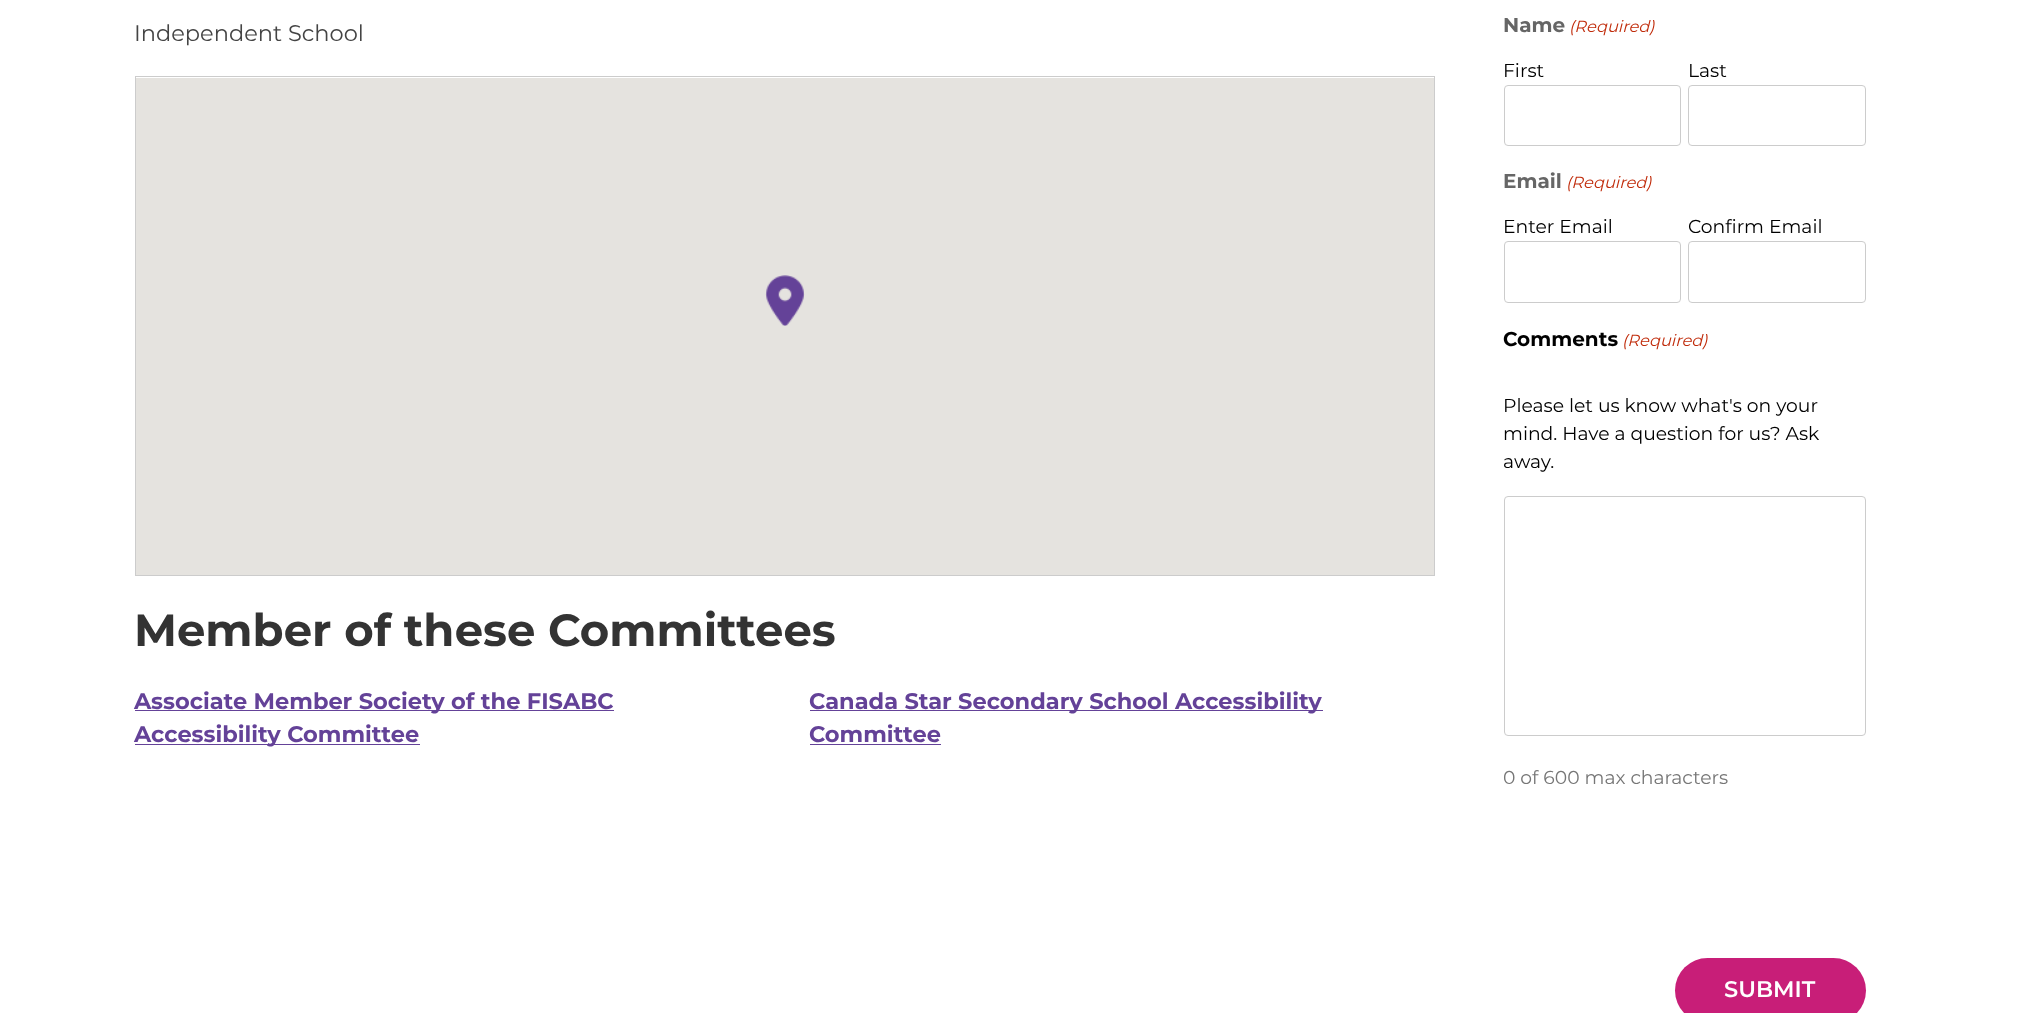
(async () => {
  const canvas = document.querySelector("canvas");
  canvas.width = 2018;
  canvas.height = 1013;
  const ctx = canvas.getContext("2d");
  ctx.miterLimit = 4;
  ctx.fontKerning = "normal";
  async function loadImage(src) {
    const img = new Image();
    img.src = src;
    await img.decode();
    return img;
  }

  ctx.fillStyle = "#ffffff";
  ctx.fillRect(0, 0, 2018, 1013);
  ctx.strokeStyle = "#cccccc";
  ctx.strokeRect(135.5, 76.5, 1299, 499);
  ctx.fillStyle = "#e5e3df";
  ctx.fillRect(136, 78, 1298, 497);
  ctx.drawImage(await loadImage("img/1.png"), 765, 275, 40, 51);
  for (const [x, y, w, h, color] of [
    [135, 710, 479, 1, "#644298"],
    [135, 744, 285, 1, "#644298"],
    [810, 710, 513, 1, "#644298"],
    [810, 744, 131, 1, "#644298"],
  ]) {
    ctx.fillStyle = color;
    ctx.fillRect(x, y, w, h);
  }
  ctx.beginPath();
  ctx.roundRect(1504.5, 85.5, 176, 60, 3.5);
  ctx.stroke();
  ctx.beginPath();
  ctx.roundRect(1688.5, 85.5, 177, 60, 3.5);
  ctx.stroke();
  ctx.beginPath();
  ctx.roundRect(1504.5, 241.5, 176, 61, 3.5);
  ctx.stroke();
  ctx.beginPath();
  ctx.roundRect(1688.5, 241.5, 177, 61, 3.5);
  ctx.stroke();
  ctx.beginPath();
  ctx.roundRect(1504.5, 496.5, 361, 239, 3.5);
  ctx.stroke();
  ctx.fillStyle = "#c81e78";
  ctx.beginPath();
  ctx.roundRect(1675, 958, 191, 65, 32.5);
  ctx.fill();
  ctx.font = "22.5px Montserrat";
  ctx.fillStyle = "#444444";
  ctx.fillText("Independent School", 134, 41);
  ctx.font = "bold 45px Montserrat";
  ctx.fillStyle = "#333333";
  ctx.fillText("Member of these Committees", 134, 646);
  ctx.font = "bold 22.5px Montserrat";
  ctx.fillStyle = "#644298";
  for (const [text, x, y] of [
    ["Associate Member Society of the FISABC", 134, 709],
    ["Accessibility Committee", 134, 742],
    ["Canada Star Secondary School Accessibility", 809, 709],
    ["Committee", 809, 742],
  ]) {
    ctx.fillText(text, x, y);
  }
  ctx.font = "bold 20px Montserrat";
  ctx.fillStyle = "#666666";
  ctx.fillText("Name", 1503, 32);
  ctx.font = "italic 16.25px Montserrat";
  ctx.fillStyle = "#c02b0a";
  ctx.fillText("(Required)", 1569, 32);
  ctx.font = "18.75px Montserrat";
  ctx.fillStyle = "#000000";
  ctx.fillText("First", 1503, 77);
  ctx.fillText("Last", 1688, 77);
  ctx.font = "bold 20px Montserrat";
  ctx.fillStyle = "#666666";
  ctx.fillText("Email", 1503, 188);
  ctx.font = "italic 16.25px Montserrat";
  ctx.fillStyle = "#c02b0a";
  ctx.fillText("(Required)", 1566, 188);
  ctx.font = "18.75px Montserrat";
  ctx.fillStyle = "#000000";
  ctx.fillText("Enter Email", 1503, 233);
  ctx.fillText("Confirm Email", 1688, 233);
  ctx.font = "bold 20px Montserrat";
  ctx.fillText("Comments", 1503, 346);
  ctx.font = "italic 16.25px Montserrat";
  ctx.fillStyle = "#c02b0a";
  ctx.fillText("(Required)", 1622, 346);
  ctx.font = "18.75px Montserrat";
  ctx.fillStyle = "#000000";
  for (const [text, x, y] of [
    ["Please let us know what's on your", 1503, 412],
    ["mind. Have a question for us? Ask", 1503, 440],
    ["away.", 1503, 468],
  ]) {
    ctx.fillText(text, x, y);
  }
  ctx.fillStyle = "#767676";
  ctx.fillText("0 of 600 max characters", 1503, 784);
  ctx.font = "600 22.5px Montserrat";
  ctx.fillStyle = "#ffffff";
  ctx.fillText("SUBMIT", 1724, 997);
})();
